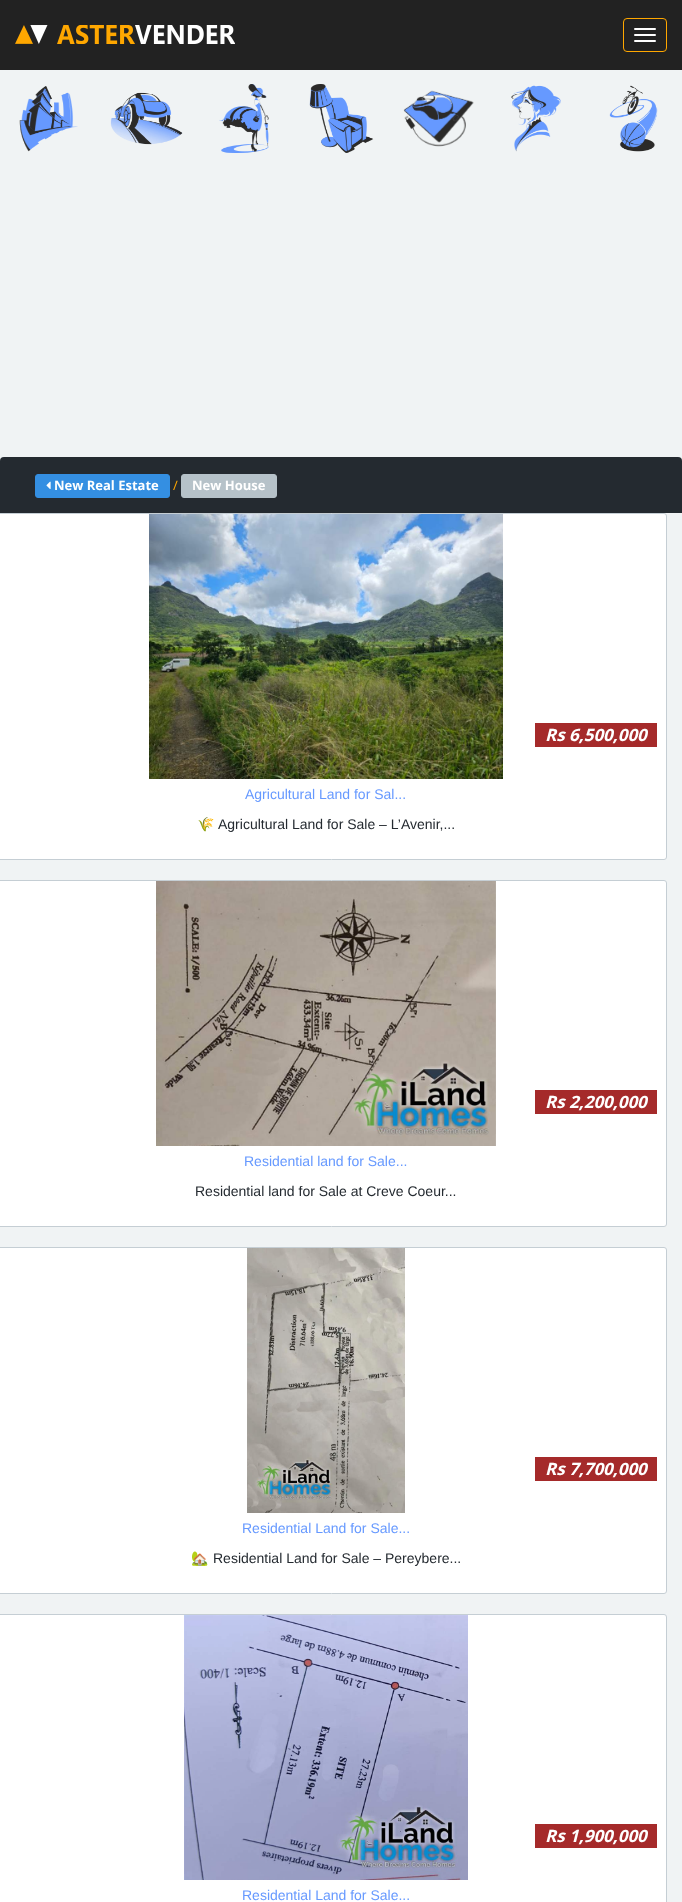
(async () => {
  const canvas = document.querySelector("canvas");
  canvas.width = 682;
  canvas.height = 1902;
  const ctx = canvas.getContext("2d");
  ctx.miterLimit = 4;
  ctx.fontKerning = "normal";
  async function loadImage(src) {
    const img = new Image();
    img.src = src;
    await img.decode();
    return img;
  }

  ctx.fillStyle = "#f0f3f4";
  ctx.fillRect(0, 0, 682, 1902);
  ctx.fillStyle = "#222222";
  ctx.fillRect(0, 0, 682, 70);
  ctx.drawImage(await loadImage("img/1.png"), 15, 25, 220, 19);
  ctx.beginPath();
  ctx.roundRect(623.5, 18.5, 43, 33, 3.5);
  ctx.strokeStyle = "#ffa700";
  ctx.stroke();
  ctx.fillStyle = "#ffffff";
  ctx.beginPath();
  ctx.roundRect(634, 28, 22, 2, 1);
  ctx.fill();
  ctx.beginPath();
  ctx.roundRect(634, 34, 22, 2, 1);
  ctx.fill();
  ctx.beginPath();
  ctx.roundRect(634, 40, 22, 2, 1);
  ctx.fill();
  ctx.drawImage(await loadImage("img/2.png"), 19, 86, 59, 66);
  ctx.drawImage(await loadImage("img/3.png"), 110, 92, 73, 53);
  ctx.drawImage(await loadImage("img/4.png"), 219, 84, 50, 69);
  ctx.drawImage(await loadImage("img/5.png"), 309, 84, 65, 69);
  ctx.drawImage(await loadImage("img/6.png"), 403, 90, 71, 57);
  ctx.drawImage(await loadImage("img/7.png"), 511, 85, 50, 67);
  ctx.drawImage(await loadImage("img/8.png"), 609, 85, 49, 67);
  ctx.fillStyle = "#242a30";
  ctx.beginPath();
  ctx.roundRect(0, 457, 682, 56, [4, 4, 0, 0]);
  ctx.fill();
  ctx.fillStyle = "#348fe2";
  ctx.beginPath();
  ctx.roundRect(35.5, 474.5, 134, 23, 2.5);
  ctx.fill();
  ctx.strokeStyle = "#348fe2";
  ctx.stroke();
  ctx.drawImage(await loadImage("img/9.png"), 46, 481, 5, 8);
  ctx.fillStyle = "#b6c2c9";
  ctx.beginPath();
  ctx.roundRect(181.5, 474.5, 95, 23, 2.5);
  ctx.fill();
  ctx.strokeStyle = "#b6c2c9";
  ctx.stroke();
  ctx.fillStyle = "#ffffff";
  ctx.beginPath();
  ctx.roundRect(-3.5, 513.5, 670, 346, 2.5);
  ctx.fill();
  ctx.strokeStyle = "#c5ced4";
  ctx.stroke();
  ctx.drawImage(await loadImage("img/10.png"), 149, 514, 354, 265);
  ctx.fillStyle = "#a52a2a";
  ctx.fillRect(535, 723, 122, 24);
  ctx.fillStyle = "#ffffff";
  ctx.beginPath();
  ctx.roundRect(-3.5, 880.5, 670, 346, 2.5);
  ctx.fill();
  ctx.stroke();
  ctx.drawImage(await loadImage("img/11.png"), 156, 881, 340, 265);
  ctx.fillStyle = "#a52a2a";
  ctx.fillRect(535, 1090, 122, 24);
  ctx.fillStyle = "#ffffff";
  ctx.beginPath();
  ctx.roundRect(-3.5, 1247.5, 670, 346, 2.5);
  ctx.fill();
  ctx.stroke();
  ctx.drawImage(await loadImage("img/12.png"), 247, 1248, 158, 265);
  ctx.fillStyle = "#a52a2a";
  ctx.fillRect(535, 1457, 122, 24);
  ctx.fillStyle = "#ffffff";
  ctx.beginPath();
  ctx.roundRect(-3.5, 1614.5, 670, 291, 2.5);
  ctx.fill();
  ctx.stroke();
  ctx.drawImage(await loadImage("img/13.png"), 184, 1615, 284, 265);
  ctx.fillStyle = "#a52a2a";
  ctx.fillRect(535, 1824, 122, 24);
  ctx.font = "bold 13px Open Sans";
  ctx.fillStyle = "#ffffff";
  ctx.fillText("New Real Estate", 54, 490);
  ctx.font = "13px Open Sans";
  ctx.fillStyle = "#ffa700";
  ctx.fillText("/", 173, 490);
  ctx.font = "bold 13px Open Sans";
  ctx.fillStyle = "#ffffff";
  ctx.fillText("New House", 192, 490);
  ctx.font = "italic bold 17px Open Sans";
  ctx.fillText("Rs 6,500,000", 545, 741);
  ctx.font = "14px Liberation Sans";
  ctx.fillStyle = "#6699ff";
  ctx.fillText("Agricultural Land for Sal...", 245, 799);
  ctx.font = "14px Noto Color Emoji";
  ctx.fillStyle = "#242a30";
  ctx.fillText("🌾", 197, 829);
  ctx.font = "14px Liberation Sans";
  ctx.fillText("Agricultural Land for Sale – L’Avenir,...", 218, 829);
  ctx.font = "italic bold 17px Open Sans";
  ctx.fillStyle = "#ffffff";
  ctx.fillText("Rs 2,200,000", 545, 1108);
  ctx.font = "14px Liberation Sans";
  ctx.fillStyle = "#6699ff";
  ctx.fillText("Residential land for Sale...", 244, 1166);
  ctx.fillStyle = "#242a30";
  ctx.fillText("Residential land for Sale at Creve Coeur...", 195, 1196);
  ctx.font = "italic bold 17px Open Sans";
  ctx.fillStyle = "#ffffff";
  ctx.fillText("Rs 7,700,000", 545, 1475);
  ctx.font = "14px Liberation Sans";
  ctx.fillStyle = "#6699ff";
  ctx.fillText("Residential Land for Sale...", 242, 1533);
  ctx.font = "14px Noto Color Emoji";
  ctx.fillStyle = "#242a30";
  ctx.fillText("🏡", 191, 1563);
  ctx.font = "14px Liberation Sans";
  ctx.fillText("Residential Land for Sale – Pereybere...", 213, 1563);
  ctx.font = "italic bold 17px Open Sans";
  ctx.fillStyle = "#ffffff";
  ctx.fillText("Rs 1,900,000", 545, 1842);
  ctx.font = "14px Liberation Sans";
  ctx.fillStyle = "#6699ff";
  ctx.fillText("Residential Land for Sale...", 242, 1900);
})();
